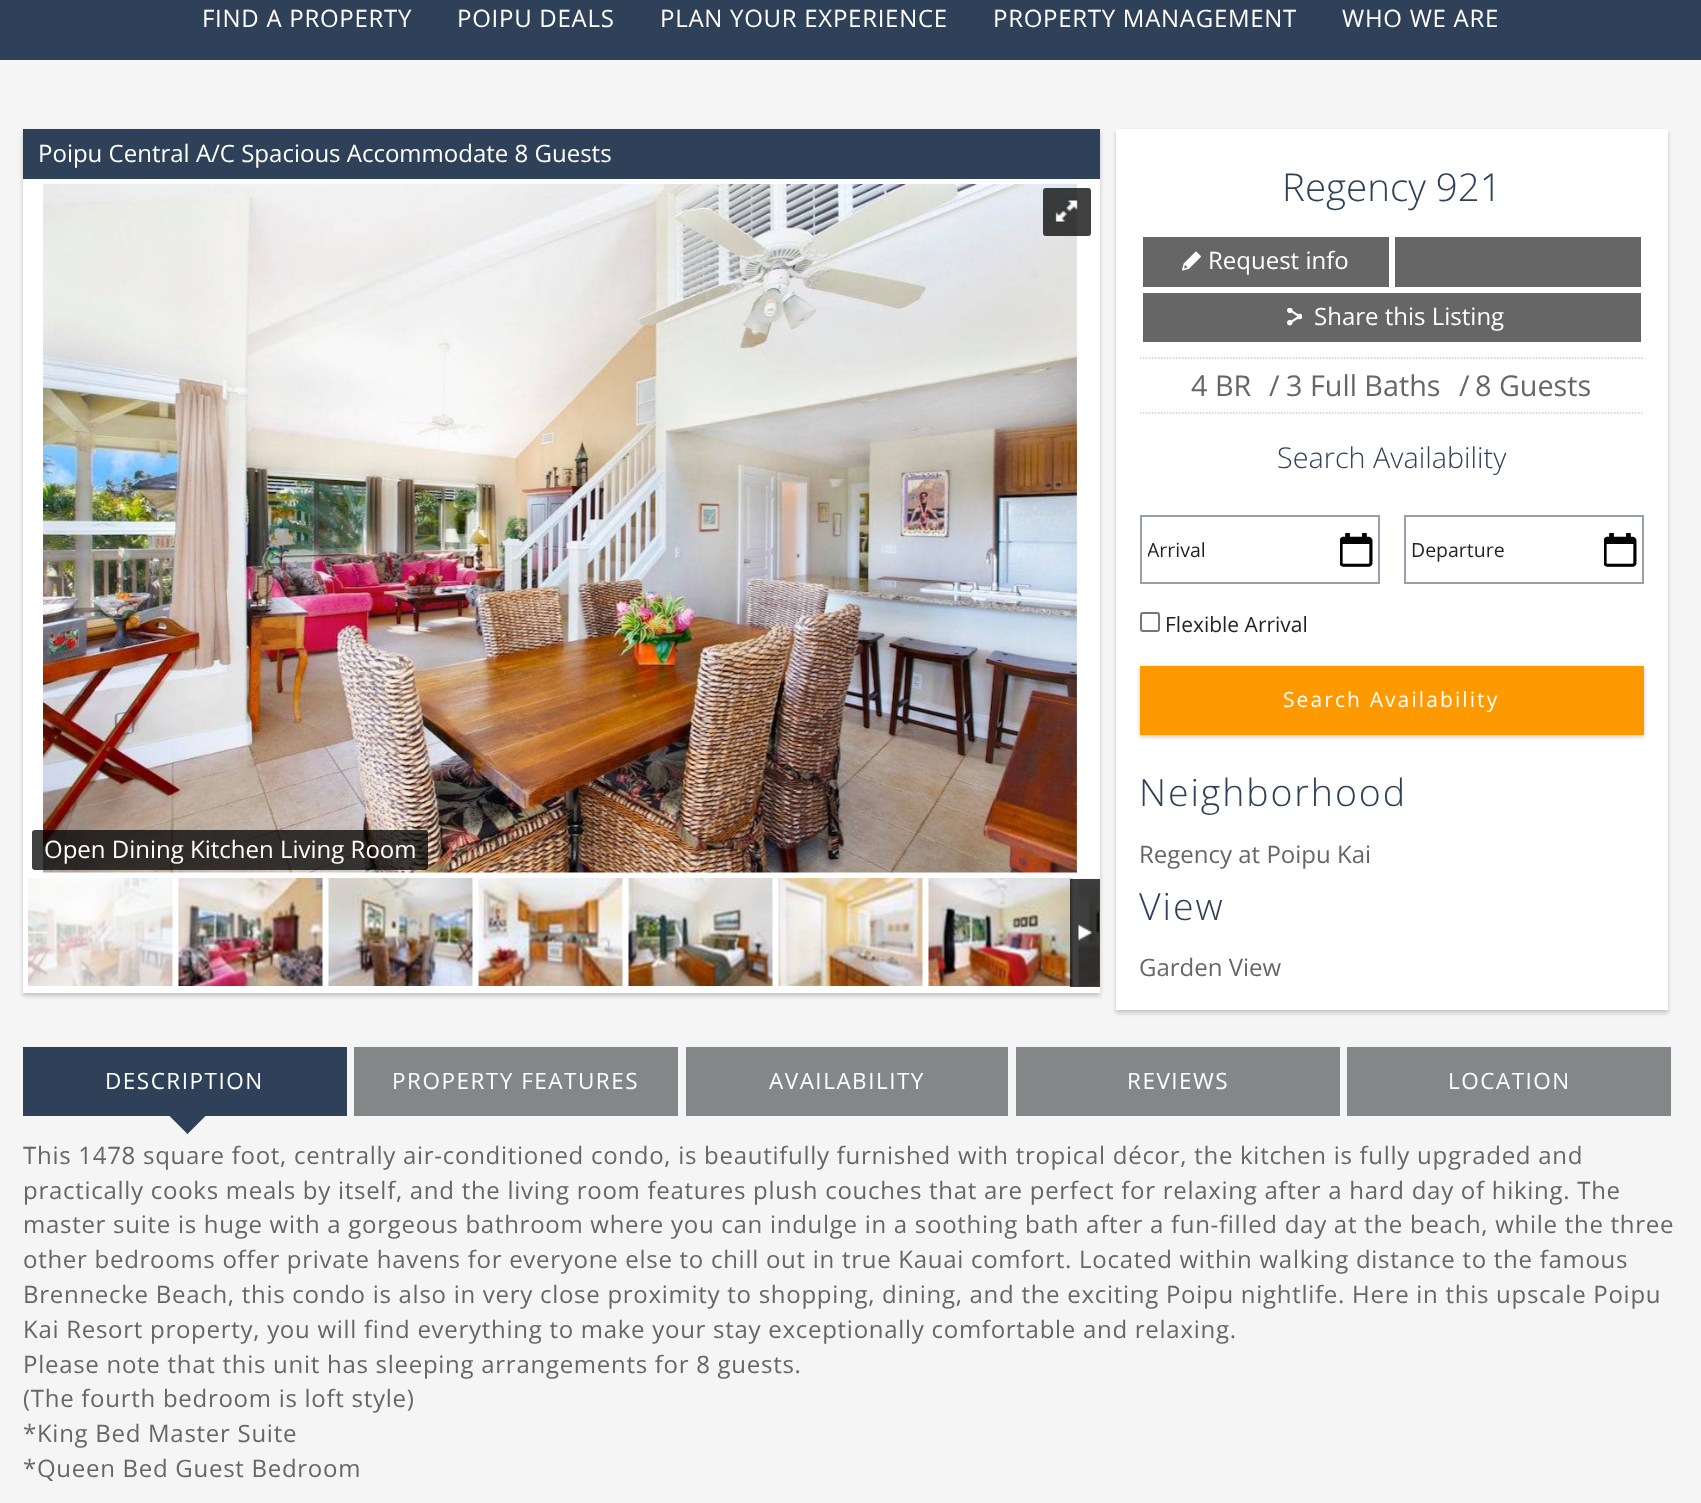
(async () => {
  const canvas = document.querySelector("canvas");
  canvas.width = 1701;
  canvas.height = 1503;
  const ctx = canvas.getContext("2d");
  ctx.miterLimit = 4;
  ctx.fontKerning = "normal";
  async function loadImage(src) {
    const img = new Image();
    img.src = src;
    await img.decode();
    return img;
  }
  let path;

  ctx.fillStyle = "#f5f5f5";
  ctx.fillRect(0, 0, 1701, 1503);
  ctx.fillStyle = "#2f4159";
  ctx.fillRect(0, 0, 1701, 60);
  ctx.fillStyle = "rgba(0, 0, 0, 0.2)";
  ctx.filter = "blur(2px)";
  ctx.beginPath();
  ctx.rect(23, 132, 1077, 864);
  ctx.fill();
  ctx.filter = "none";
  ctx.fillStyle = "#ffffff";
  ctx.fillRect(23, 179, 1077, 814);
  ctx.fillStyle = "#2f4159";
  ctx.fillRect(23, 129, 1077, 50);
  ctx.drawImage(await loadImage("img/1.png"), 43, 184, 1034, 689);
  ctx.fillStyle = "rgba(0, 0, 0, 0.75)";
  ctx.beginPath();
  ctx.roundRect(1043, 188, 48, 48, 3);
  ctx.fill();
  ctx.drawImage(await loadImage("img/2.png"), 1055, 199, 23, 24);
  ctx.beginPath();
  ctx.roundRect(32, 830, 396, 40, 3);
  ctx.fill();
  ctx.drawImage(await loadImage("img/3.png"), 28, 878, 145, 108);
  ctx.drawImage(await loadImage("img/4.png"), 178, 878, 145, 108);
  ctx.drawImage(await loadImage("img/5.png"), 328, 878, 145, 108);
  ctx.drawImage(await loadImage("img/6.png"), 478, 878, 145, 108);
  ctx.drawImage(await loadImage("img/7.png"), 628, 878, 145, 108);
  ctx.drawImage(await loadImage("img/8.png"), 778, 878, 145, 108);
  ctx.drawImage(await loadImage("img/9.png"), 928, 878, 145, 108);
  ctx.drawImage(await loadImage("img/10.png"), 1078, 878, 21, 108);
  ctx.fillRect(1070, 879, 30, 108);
  ctx.drawImage(await loadImage("img/11.png"), 1078, 924, 15, 17);
  ctx.fillStyle = "rgba(0, 0, 0, 0.2)";
  ctx.filter = "blur(2px)";
  ctx.beginPath();
  ctx.rect(1116, 132, 552, 881);
  ctx.fill();
  ctx.filter = "none";
  ctx.fillStyle = "#ffffff";
  ctx.fillRect(1116, 129, 552, 881);
  ctx.fillStyle = "#666666";
  ctx.fillRect(1143, 237, 246, 50);
  ctx.drawImage(await loadImage("img/12.png"), 1182, 251, 19, 20);
  ctx.fillRect(1395, 237, 246, 50);
  ctx.fillRect(1143, 293, 498, 49);
  ctx.drawImage(await loadImage("img/13.png"), 1287, 308, 15, 18);
  path = new Path2D("M1140 358H1644");
  ctx.strokeStyle = "#cccccc";
  ctx.lineWidth = 1.5;
  ctx.setLineDash([1.5, 1.5]);
  ctx.stroke(path);
  path = new Path2D("M1140 413H1644");
  ctx.stroke(path);
  ctx.drawImage(await loadImage("img/14.png"), 1340, 533, 33, 34);
  ctx.strokeStyle = "#97a0ac";
  ctx.lineWidth = 2;
  ctx.setLineDash([]);
  ctx.strokeRect(1141, 516, 238, 67);
  ctx.drawImage(await loadImage("img/14.png"), 1604, 533, 33, 34);
  ctx.strokeRect(1405, 516, 238, 67);
  ctx.beginPath();
  ctx.roundRect(1141, 613, 18, 18, 2);
  ctx.strokeStyle = "#767676";
  ctx.stroke();
  ctx.fillStyle = "rgba(0, 0, 0, 0.2)";
  ctx.filter = "blur(2px)";
  ctx.beginPath();
  ctx.rect(1140, 668, 504, 69);
  ctx.fill();
  ctx.filter = "none";
  ctx.fillStyle = "#ff9900";
  ctx.fillRect(1140, 666, 504, 69);
  ctx.fillStyle = "#2f4159";
  ctx.fillRect(23, 1047, 324, 69);
  path = new Path2D("M169.5 1116H205.5L187.5 1134Z");
  ctx.fill(path);
  for (const [x, y, w, h, color] of [
    [354, 1047, 324, 69, "#848788"],
    [686, 1047, 322, 69, "#848788"],
    [1016, 1047, 324, 69, "#848788"],
    [1347, 1047, 324, 69, "#848788"],
  ]) {
    ctx.fillStyle = color;
    ctx.fillRect(x, y, w, h);
  }
  ctx.letterSpacing = "0.72px";
  ctx.font = "24px Open Sans";
  ctx.fillStyle = "#ffffff";
  for (const [text, x, y] of [
    ["FIND A PROPERTY", 202, 27],
    ["POIPU DEALS", 457, 27],
    ["PLAN YOUR EXPERIENCE", 660, 27],
    ["PROPERTY MANAGEMENT", 993, 27],
    ["WHO WE ARE", 1342, 27],
  ]) {
    ctx.fillText(text, x, y);
  }
  ctx.letterSpacing = "0px";
  ctx.fillText("Poipu Central A/C Spacious Accommodate 8 Guests", 38, 162);
  ctx.fillText("Open Dining Kitchen Living Room", 44, 858);
  ctx.font = "300 38.5px Open Sans";
  ctx.fillStyle = "#2f4159";
  ctx.fillText("Regency 921", 1282, 201);
  ctx.font = "24px Open Sans";
  ctx.fillStyle = "#ffffff";
  ctx.fillText("Request info", 1208, 269);
  ctx.fillText("Share this Listing", 1314, 325);
  ctx.font = "28.75px Open Sans";
  ctx.fillStyle = "#666666";
  for (const [text, x, y] of [
    ["4 BR", 1191, 396],
    ["/", 1269, 396],
    ["3 Full Baths", 1286, 396],
    ["/", 1459, 396],
    ["8 Guests", 1475, 396],
  ]) {
    ctx.fillText(text, x, y);
  }
  ctx.font = "300 28.75px Open Sans";
  ctx.fillStyle = "#2f4159";
  ctx.fillText("Search Availability", 1277, 468);
  ctx.save();
  ctx.beginPath();
  ctx.rect(1148, 536, 220, 27);
  ctx.clip();
  ctx.font = "19.5px Open Sans";
  ctx.fillStyle = "#231f20";
  ctx.fillText("Arrival", 1147, 557);
  ctx.restore();
  ctx.font = "19.5px Open Sans";
  ctx.fillStyle = "#231f20";
  ctx.fillText("Departure", 1411, 557);
  ctx.font = "21px Open Sans";
  ctx.fillText("Flexible Arrival", 1165, 632);
  ctx.letterSpacing = "2.1px";
  ctx.fillStyle = "#ffffff";
  ctx.fillText("Search Availability", 1283, 707);
  ctx.letterSpacing = "1.9px";
  ctx.font = "300 37.5px Open Sans";
  ctx.fillStyle = "#2f4159";
  ctx.fillText("Neighborhood", 1139, 806);
  ctx.letterSpacing = "0px";
  ctx.font = "24px Open Sans";
  ctx.fillStyle = "#666666";
  ctx.fillText("Regency at Poipu Kai", 1139, 863);
  ctx.letterSpacing = "1.9px";
  ctx.font = "300 37.5px Open Sans";
  ctx.fillStyle = "#2f4159";
  ctx.fillText("View", 1139, 920);
  ctx.letterSpacing = "0px";
  ctx.font = "24px Open Sans";
  ctx.fillStyle = "#666666";
  ctx.fillText("Garden View", 1139, 976);
  ctx.letterSpacing = "1.5px";
  ctx.font = "22.5px Open Sans";
  ctx.fillStyle = "#ffffff";
  ctx.fillText("DESCRIPTION", 105, 1089);
  ctx.letterSpacing = "0.72px";
  ctx.font = "24px Open Sans";
  ctx.fillStyle = "#666666";
  for (const [text, x, y] of [
    ["This 1478 square foot, centrally air-conditioned condo, is beautifully furnished with tropical décor, the kitchen is fully upgraded and", 23, 1164],
    ["practically cooks meals by itself, and the living room features plush couches that are perfect for relaxing after a hard day of hiking. The", 23, 1199],
    ["master suite is huge with a gorgeous bathroom where you can indulge in a soothing bath after a fun-filled day at the beach, while the three", 23, 1233],
    ["other bedrooms offer private havens for everyone else to chill out in true Kauai comfort. Located within walking distance to the famous", 23, 1268],
    ["Brennecke Beach, this condo is also in very close proximity to shopping, dining, and the exciting Poipu nightlife. Here in this upscale Poipu", 23, 1303],
    ["Kai Resort property, you will find everything to make your stay exceptionally comfortable and relaxing.", 23, 1338],
    ["Please note that this unit has sleeping arrangements for 8 guests.", 23, 1373],
    ["(The fourth bedroom is loft style)", 23, 1407],
    ["*King Bed Master Suite", 23, 1442],
    ["*Queen Bed Guest Bedroom", 23, 1477],
  ]) {
    ctx.fillText(text, x, y);
  }
  ctx.letterSpacing = "1.5px";
  ctx.font = "22.5px Open Sans";
  ctx.fillStyle = "#ffffff";
  for (const [text, x, y] of [
    ["PROPERTY FEATURES", 392, 1089],
    ["AVAILABILITY", 769, 1089],
    ["REVIEWS", 1127, 1089],
    ["LOCATION", 1448, 1089],
  ]) {
    ctx.fillText(text, x, y);
  }
})();
